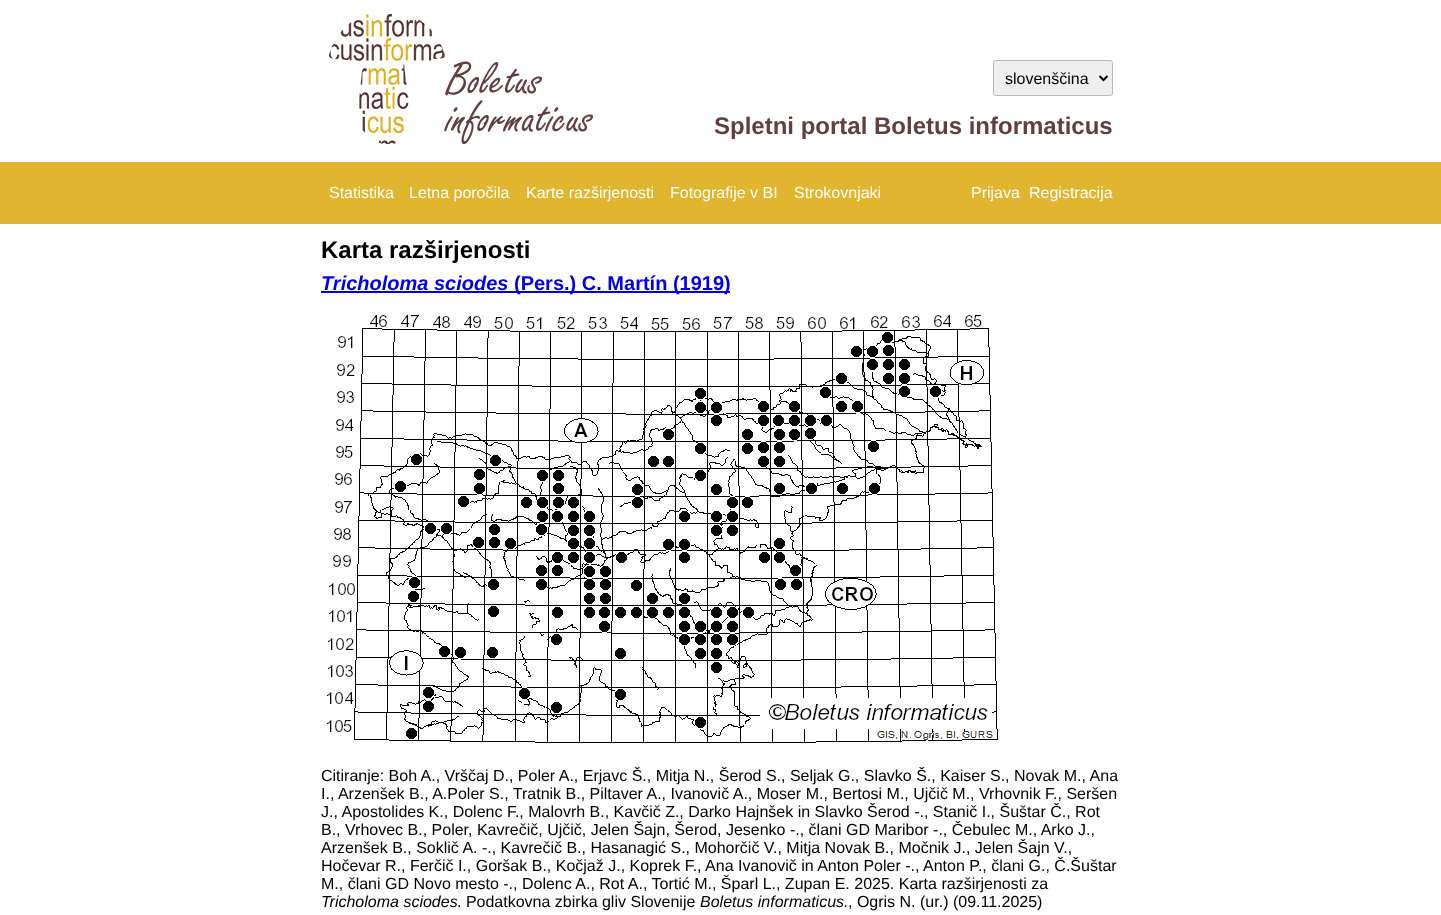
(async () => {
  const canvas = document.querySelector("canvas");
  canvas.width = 1441;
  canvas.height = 915;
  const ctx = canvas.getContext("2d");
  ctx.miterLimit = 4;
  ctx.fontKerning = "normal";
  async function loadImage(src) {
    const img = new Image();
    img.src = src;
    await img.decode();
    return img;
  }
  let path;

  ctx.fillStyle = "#ffffff";
  ctx.fillRect(0, 0, 1441, 915);
  ctx.drawImage(await loadImage("img/1.png"), 329, 14, 264, 130);
  ctx.fillStyle = "#efefef";
  ctx.beginPath();
  ctx.roundRect(993.5, 60.5, 119, 35, 2.5);
  ctx.fill();
  ctx.strokeStyle = "#b9b9b9";
  ctx.stroke();
  path = new Path2D("M1099.5 76L1103.5 80L1107.5 76");
  ctx.strokeStyle = "#000000";
  ctx.lineWidth = 2;
  ctx.stroke(path);
  ctx.fillStyle = "#e1b52f";
  ctx.fillRect(0, 162, 1441, 62);
  ctx.fillStyle = "#0000ee";
  ctx.fillRect(321, 291, 409, 2);
  ctx.drawImage(await loadImage("img/2.png"), 327, 315, 671, 428);
  ctx.font = "16px Liberation Sans";
  ctx.fillStyle = "#000000";
  ctx.fillText("slovenščina", 1005, 84);
  ctx.font = "bold 24px Liberation Sans";
  ctx.fillStyle = "#623e3e";
  ctx.fillText("Spletni portal Boletus informaticus", 714, 134);
  ctx.font = "16px Liberation Sans";
  ctx.fillStyle = "#ffffff";
  for (const [text, x, y] of [
    ["Statistika", 329, 198],
    ["Letna poročila", 409, 198],
    ["Karte razširjenosti", 526, 198],
    ["Fotografije v BI", 670, 198],
    ["Strokovnjaki", 794, 198],
    ["Prijava", 971, 198],
    ["Registracija", 1029, 198],
  ]) {
    ctx.fillText(text, x, y);
  }
  ctx.font = "bold 24px Liberation Sans";
  ctx.fillStyle = "#000000";
  ctx.fillText("Karta razširjenosti", 321, 258);
  ctx.font = "italic bold 20px Liberation Sans";
  ctx.fillStyle = "#0000ee";
  ctx.fillText("Tricholoma sciodes", 321, 290);
  ctx.font = "bold 20px Liberation Sans";
  ctx.fillText("(Pers.) C. Martín (1919)", 514, 290);
  ctx.font = "16px Liberation Sans";
  ctx.fillStyle = "#000000";
  for (const [text, x, y] of [
    ["Citiranje: Boh A., Vrščaj D., Poler A., Erjavc Š., Mitja N., Šerod S., Seljak G., Slavko Š., Kaiser S., Novak M., Ana", 321, 781],
    ["I., Arzenšek B., A.Poler S., Tratnik B., Piltaver A., Ivanovič A., Moser M., Bertosi M., Ujčič M., Vrhovnik F., Seršen", 321, 799],
    ["J., Apostolides K., Dolenc F., Malovrh B., Kavčič Z., Darko Hajnšek in Slavko Šerod -., Stanič I., Šuštar Č., Rot", 321, 817],
    ["B., Vrhovec B., Poler, Kavrečič, Ujčič, Jelen Šajn, Šerod, Jesenko -., člani GD Maribor -., Čebulec M., Arko J.,", 321, 835],
    ["Arzenšek B., Soklič A. -., Kavrečič B., Hasanagić S., Mohorčič V., Mitja Novak B., Močnik J., Jelen Šajn V.,", 321, 853],
    ["Hočevar R., Ferčič I., Goršak B., Kočjaž J., Koprek F., Ana Ivanovič in Anton Poler -., Anton P., člani G., Č.Šuštar", 321, 871],
    ["M., člani GD Novo mesto -., Dolenc A., Rot A., Tortić M., Šparl L., Zupan E. 2025. Karta razširjenosti za", 321, 889],
  ]) {
    ctx.fillText(text, x, y);
  }
  ctx.font = "italic 16px Liberation Sans";
  ctx.fillText("Tricholoma sciodes", 321, 907);
  ctx.font = "16px Liberation Sans";
  ctx.fillText(". Podatkovna zbirka gliv Slovenije", 457, 907);
  ctx.font = "italic 16px Liberation Sans";
  ctx.fillText("Boletus informaticus.", 700, 907);
  ctx.font = "16px Liberation Sans";
  ctx.fillText(", Ogris N. (ur.) (09.11.2025)", 848, 907);
})();
